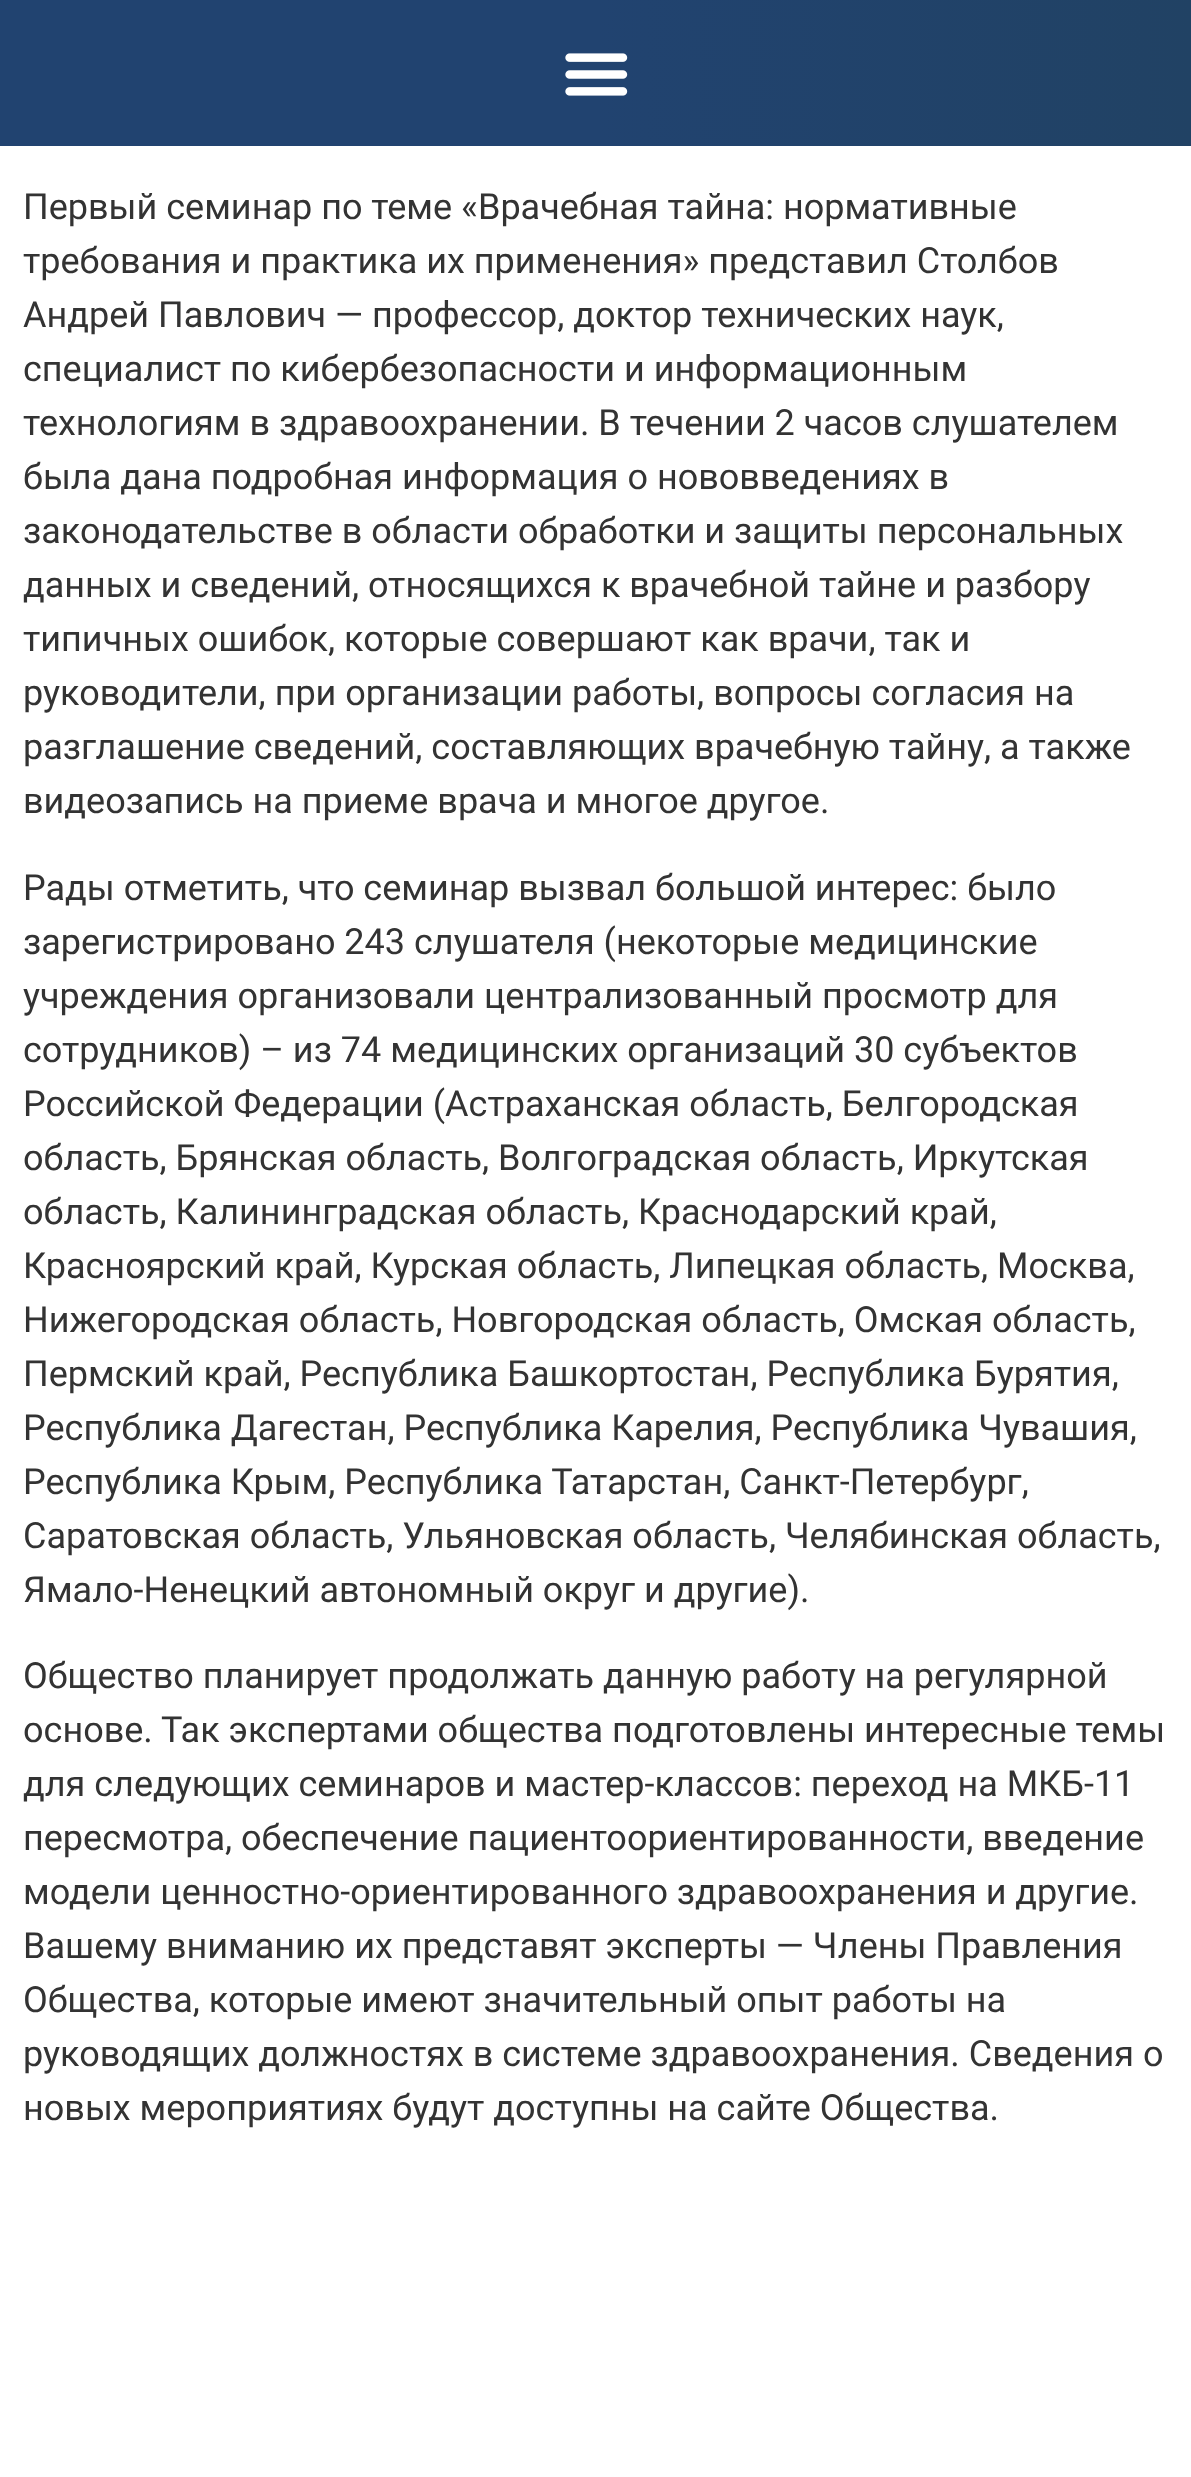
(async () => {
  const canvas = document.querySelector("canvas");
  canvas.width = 1191;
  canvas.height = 2477;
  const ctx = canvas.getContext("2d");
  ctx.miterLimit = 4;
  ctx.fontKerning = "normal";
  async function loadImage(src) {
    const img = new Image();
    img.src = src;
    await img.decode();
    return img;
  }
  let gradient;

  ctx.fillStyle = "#ffffff";
  ctx.fillRect(0, 0, 1191, 2477);
  gradient = ctx.createLinearGradient(0, 73, 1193, 73);
  gradient.addColorStop(0.5, "#214370");
  gradient.addColorStop(1, "#214264");
  ctx.fillStyle = gradient;
  ctx.fillRect(0, 0, 1191, 146);
  ctx.drawImage(await loadImage("img/1.png"), 565, 53, 63, 43);
  ctx.font = "36px Roboto";
  ctx.fillStyle = "#333333";
  for (const [text, x, y] of [
    ["Первый семинар по теме «Врачебная тайна: нормативные", 23, 219],
    ["требования и практика их применения» представил Столбов", 23, 273],
    ["Андрей Павлович — профессор, доктор технических наук,", 23, 327],
    ["специалист по кибербезопасности и информационным", 23, 381],
    ["технологиям в здравоохранении. В течении 2 часов слушателем", 23, 435],
    ["была дана подробная информация о нововведениях в", 23, 489],
    ["законодательстве в области обработки и защиты персональных", 23, 543],
    ["данных и сведений, относящихся к врачебной тайне и разбору", 23, 597],
    ["типичных ошибок, которые совершают как врачи, так и", 23, 651],
    ["руководители, при организации работы, вопросы согласия на", 23, 705],
    ["разглашение сведений, составляющих врачебную тайну, а также", 23, 759],
    ["видеозапись на приеме врача и многое другое.", 23, 813],
    ["Рады отметить, что семинар вызвал большой интерес: было", 23, 900],
    ["зарегистрировано 243 слушателя (некоторые медицинские", 23, 954],
    ["учреждения организовали централизованный просмотр для", 23, 1008],
    ["сотрудников) – из 74 медицинских организаций 30 субъектов", 23, 1062],
    ["Российской Федерации (Астраханская область, Белгородская", 23, 1116],
    ["область, Брянская область, Волгоградская область, Иркутская", 23, 1170],
    ["область, Калининградская область, Краснодарский край,", 23, 1224],
    ["Красноярский край, Курская область, Липецкая область, Москва,", 23, 1278],
    ["Нижегородская область, Новгородская область, Омская область,", 23, 1332],
    ["Пермский край, Республика Башкортостан, Республика Бурятия,", 23, 1386],
    ["Республика Дагестан, Республика Карелия, Республика Чувашия,", 23, 1440],
    ["Республика Крым, Республика Татарстан, Санкт-Петербург,", 23, 1494],
    ["Саратовская область, Ульяновская область, Челябинская область,", 23, 1548],
    ["Ямало-Ненецкий автономный округ и другие).", 23, 1602],
    ["Общество планирует продолжать данную работу на регулярной", 23, 1688],
    ["основе. Так экспертами общества подготовлены интересные темы", 23, 1742],
    ["для следующих семинаров и мастер-классов: переход на МКБ-11", 23, 1796],
    ["пересмотра, обеспечение пациентоориентированности, введение", 23, 1850],
    ["модели ценностно-ориентированного здравоохранения и другие.", 23, 1904],
    ["Вашему вниманию их представят эксперты — Члены Правления", 23, 1958],
    ["Общества, которые имеют значительный опыт работы на", 23, 2012],
    ["руководящих должностях в системе здравоохранения. Сведения о", 23, 2066],
    ["новых мероприятиях будут доступны на сайте Общества.", 23, 2120],
  ]) {
    ctx.fillText(text, x, y);
  }
})();
